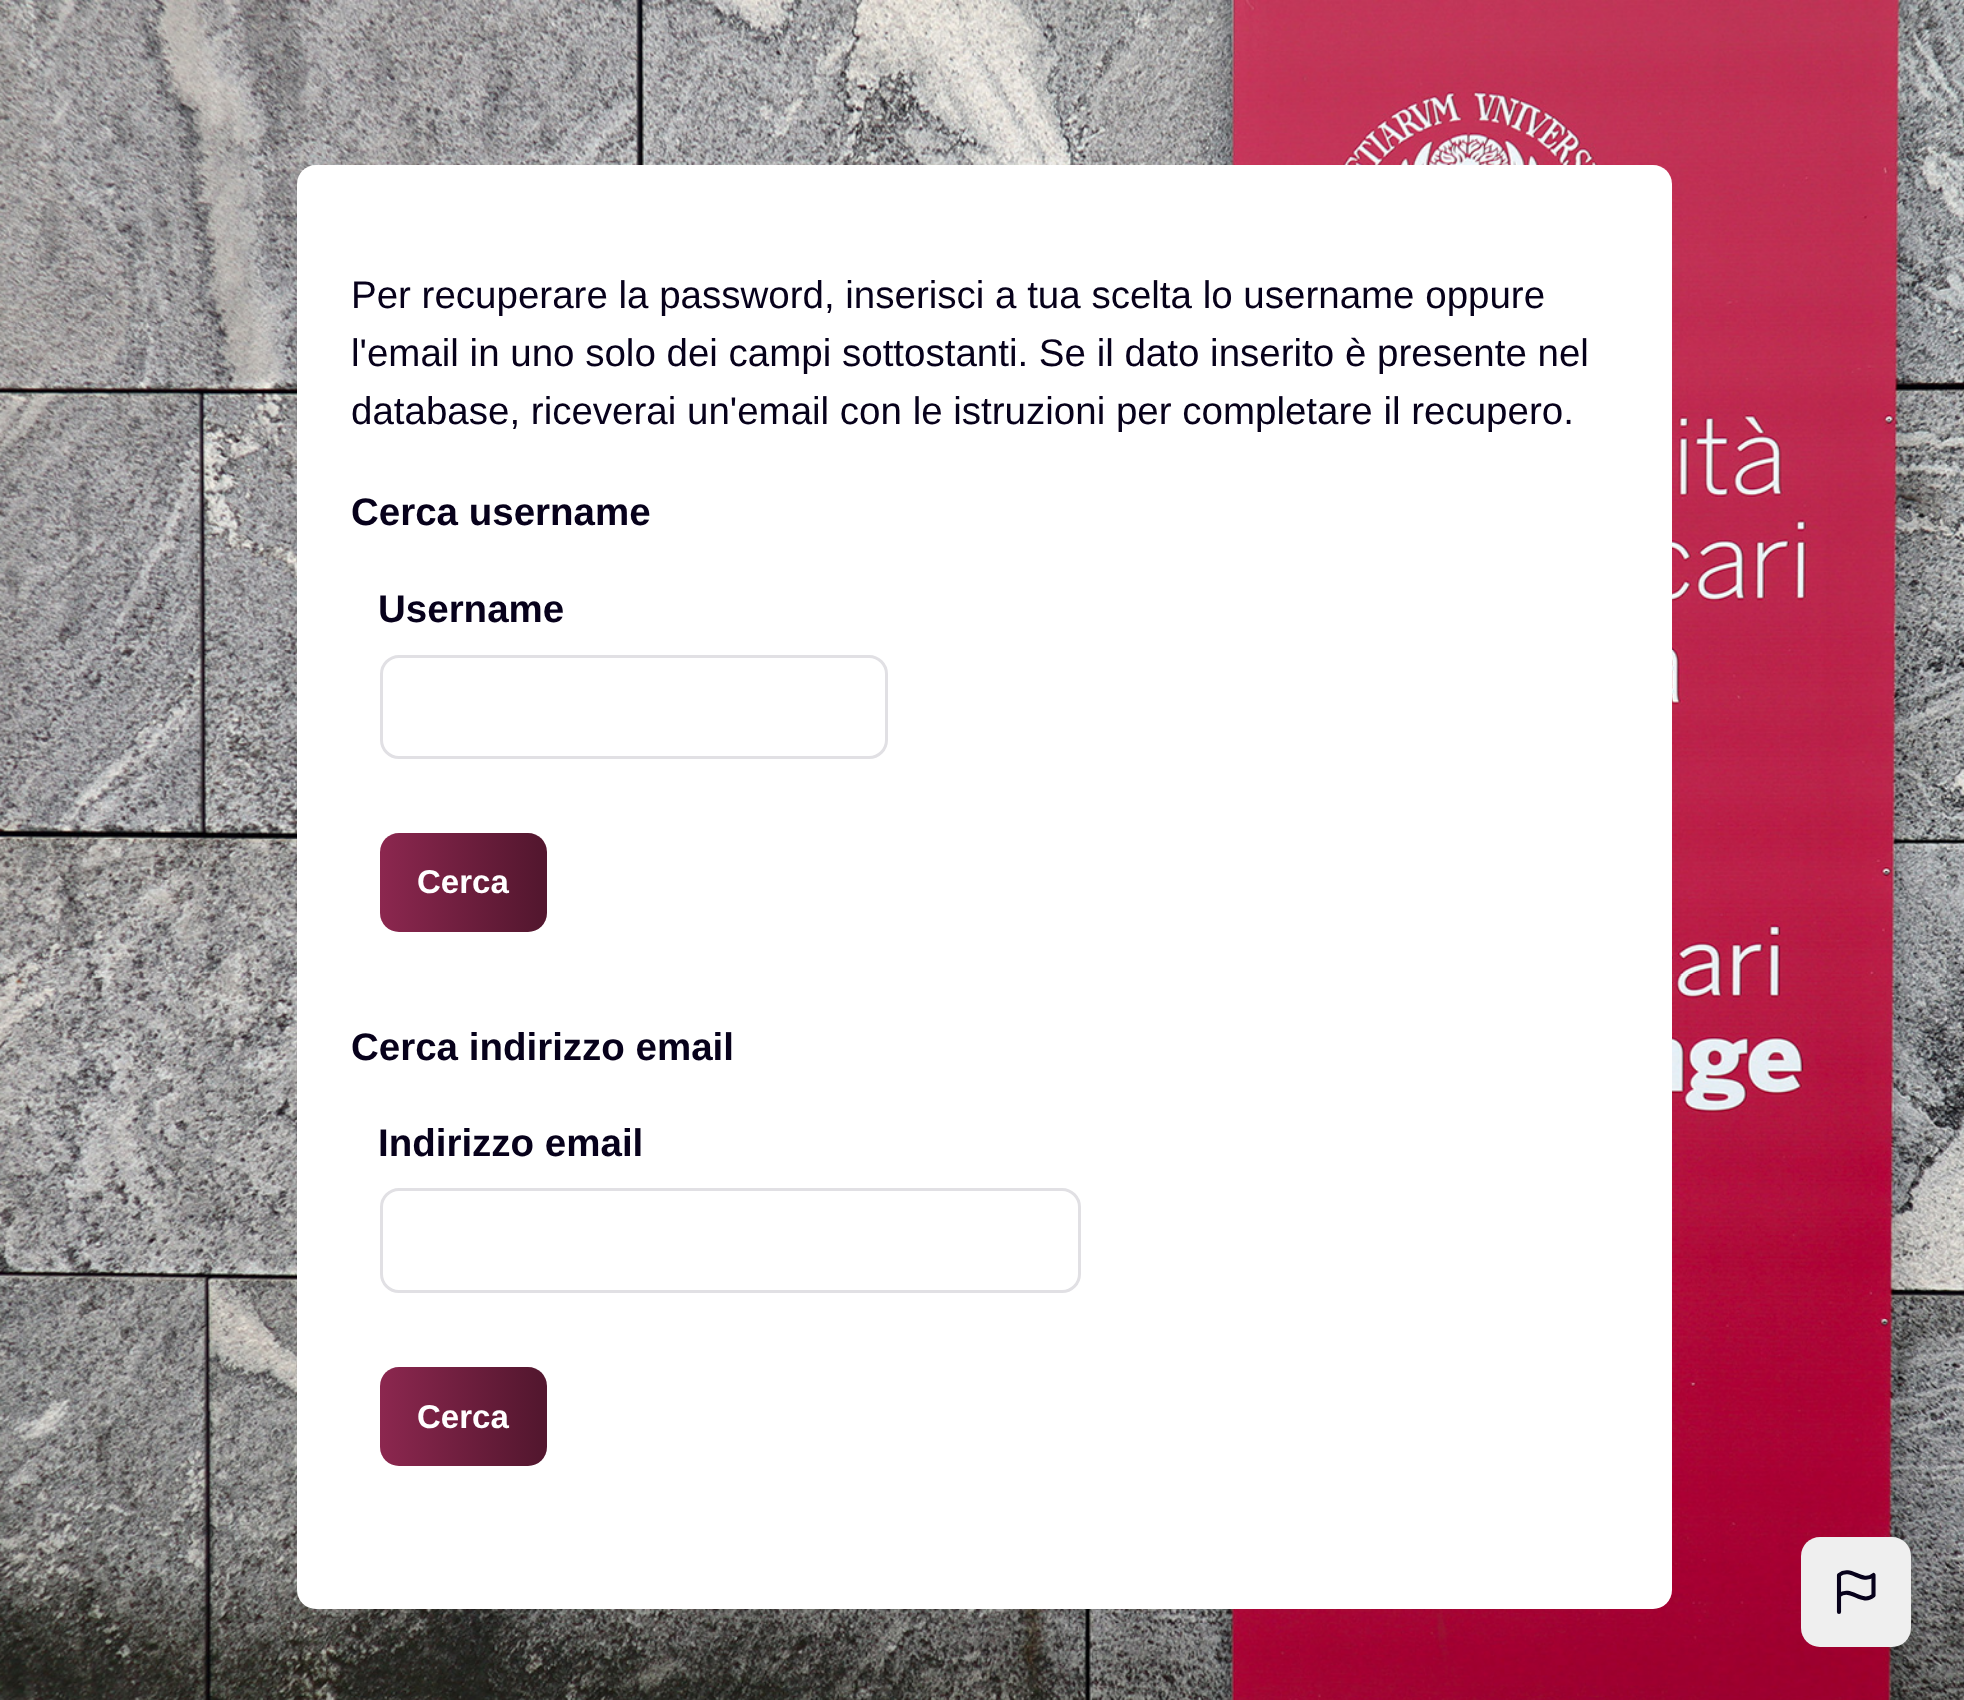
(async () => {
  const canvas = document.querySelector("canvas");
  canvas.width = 1964;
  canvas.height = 1700;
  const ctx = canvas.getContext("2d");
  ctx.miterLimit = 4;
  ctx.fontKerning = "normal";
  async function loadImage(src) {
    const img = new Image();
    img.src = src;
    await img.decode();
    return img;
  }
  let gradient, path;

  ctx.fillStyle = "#ffffff";
  ctx.fillRect(0, 0, 1964, 1700);
  ctx.drawImage(await loadImage("img/1.png"), 0, 0, 1964, 1700);
  ctx.beginPath();
  ctx.roundRect(297, 165, 1375, 1444, 19);
  ctx.fill();
  ctx.beginPath();
  ctx.roundRect(381.5, 656.5, 505, 101, 17.5);
  ctx.strokeStyle = "#e1e0e4";
  ctx.lineWidth = 3;
  ctx.stroke();
  gradient = ctx.createLinearGradient(380, 883, 547, 883);
  gradient.addColorStop(0, "#8c274f");
  gradient.addColorStop(0.95, "#54172f");
  ctx.fillStyle = gradient;
  ctx.beginPath();
  ctx.roundRect(380, 833, 167, 99, 19);
  ctx.fill();
  ctx.beginPath();
  ctx.roundRect(381.5, 1189.5, 698, 102, 17.5);
  ctx.stroke();
  gradient = ctx.createLinearGradient(380, 1416, 547, 1416);
  gradient.addColorStop(0, "#8c274f");
  gradient.addColorStop(0.95, "#54172f");
  ctx.fillStyle = gradient;
  ctx.beginPath();
  ctx.roundRect(380, 1367, 167, 99, 19);
  ctx.fill();
  ctx.fillStyle = "#efefef";
  ctx.beginPath();
  ctx.roundRect(1801, 1537, 110, 110, 19);
  ctx.fill();
  path = new Path2D("M1839 1612V1595.5M1839 1595.5V1575C1851 1565.5 1861.5 1584.5 1873.5 1575V1595.5C1861.5 1605.5 1851 1586 1839 1595.5Z");
  ctx.strokeStyle = "#07011b";
  ctx.lineWidth = 4.1;
  ctx.lineCap = "round";
  ctx.lineJoin = "round";
  ctx.stroke(path);
  ctx.font = "38.5px Liberation Sans";
  ctx.fillStyle = "#07011b";
  for (const [text, x, y] of [
    ["Per recuperare la password, inserisci a tua scelta lo username oppure", 351, 308],
    ["l'email in uno solo dei campi sottostanti. Se il dato inserito è presente nel", 351, 366],
    ["database, riceverai un'email con le istruzioni per completare il recupero.", 351, 424],
  ]) {
    ctx.fillText(text, x, y);
  }
  ctx.font = "bold 38.5px Liberation Sans";
  ctx.fillText("Cerca username", 351, 525);
  ctx.fillText("Username", 378, 622);
  ctx.font = "bold 33px Liberation Sans";
  ctx.fillStyle = "#ffffff";
  ctx.fillText("Cerca", 417, 893);
  ctx.font = "bold 38.5px Liberation Sans";
  ctx.fillStyle = "#07011b";
  ctx.fillText("Cerca indirizzo email", 351, 1060);
  ctx.fillText("Indirizzo email", 378, 1156);
  ctx.font = "bold 33px Liberation Sans";
  ctx.fillStyle = "#ffffff";
  ctx.fillText("Cerca", 417, 1428);
})();
